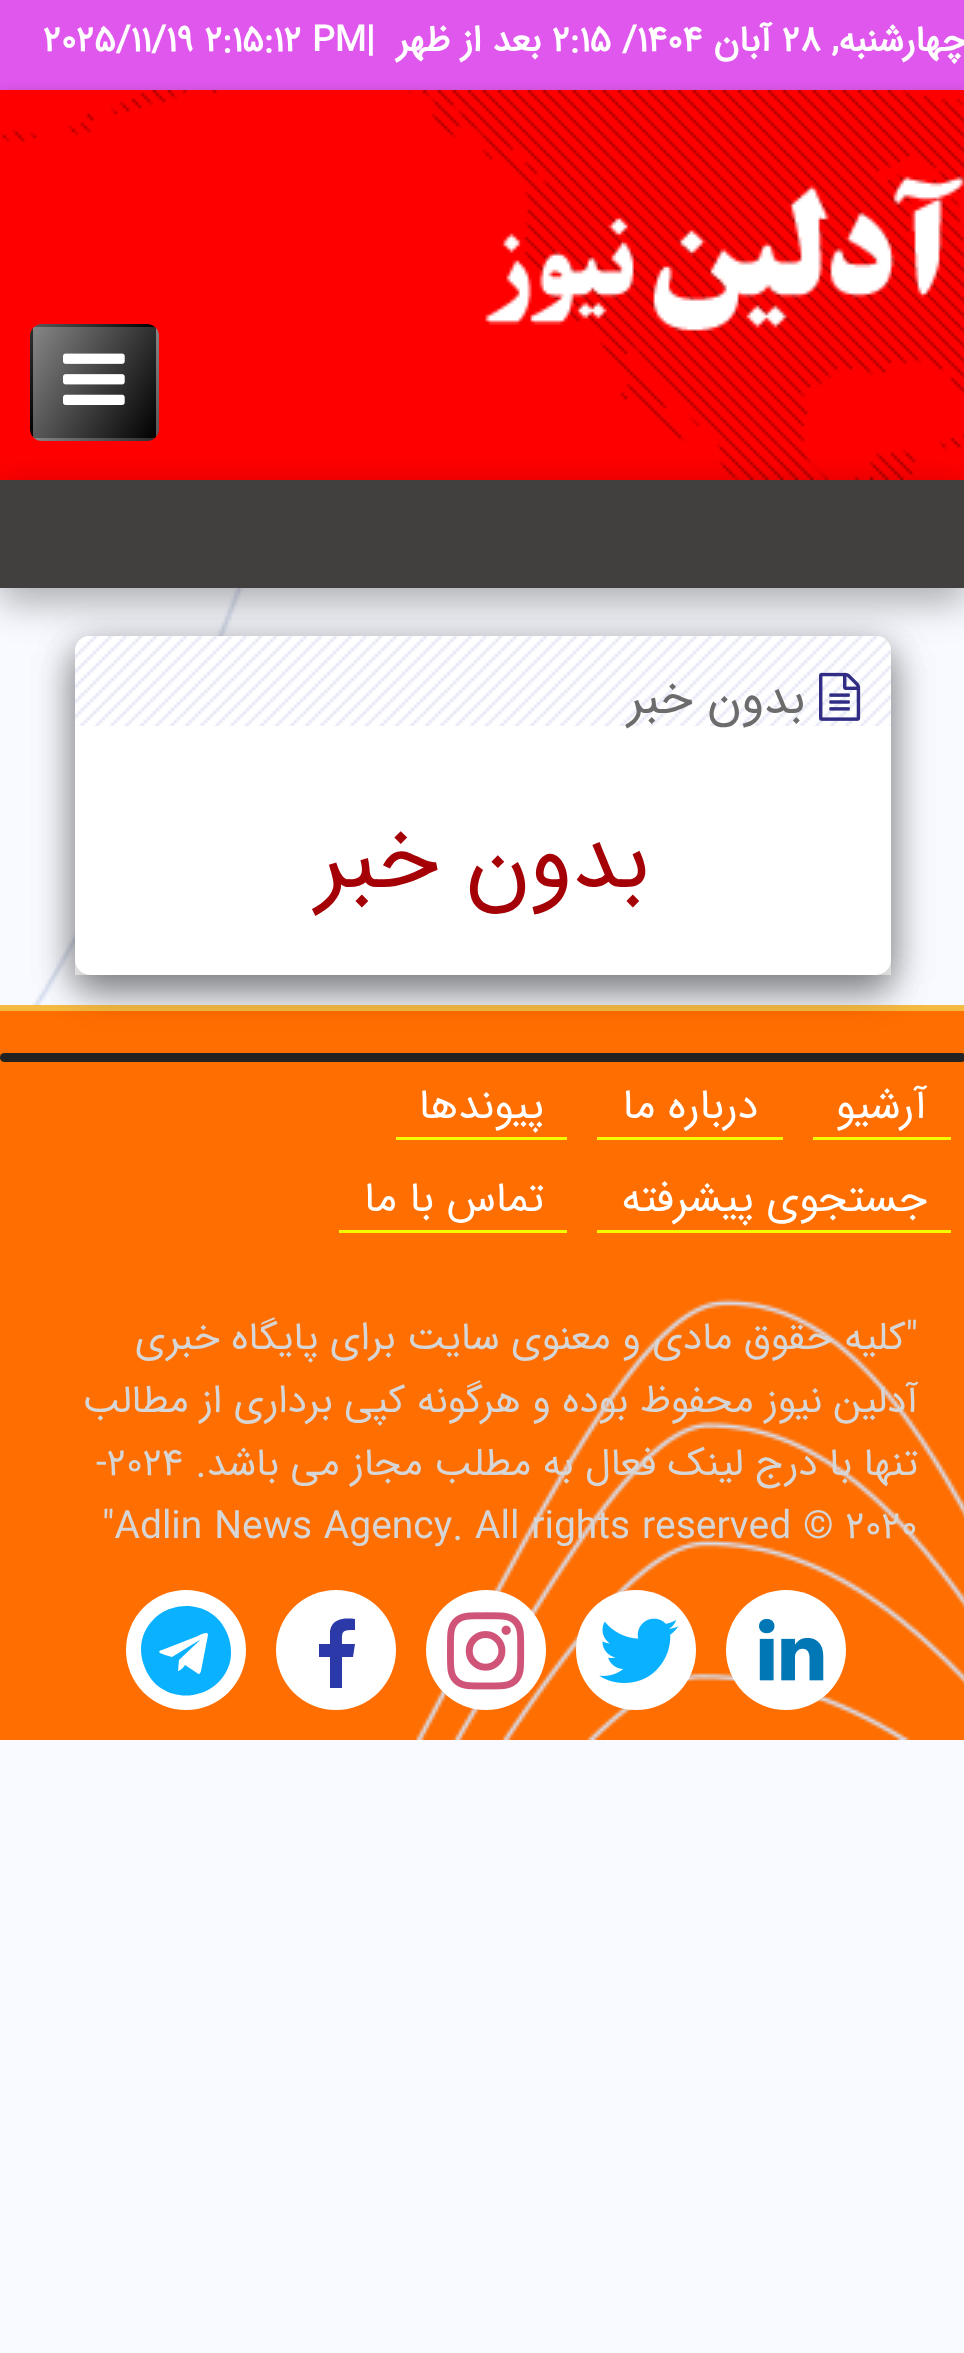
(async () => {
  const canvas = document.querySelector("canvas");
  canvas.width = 964;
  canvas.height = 2353;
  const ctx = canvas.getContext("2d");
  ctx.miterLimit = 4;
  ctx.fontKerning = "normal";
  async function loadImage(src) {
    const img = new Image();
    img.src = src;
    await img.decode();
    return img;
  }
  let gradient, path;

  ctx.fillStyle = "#f8faff";
  ctx.fillRect(0, 0, 964, 2353);
  ctx.drawImage(await loadImage("img/1.png"), 32, 588, 212, 417);
  ctx.fillStyle = "#e057ed";
  ctx.fillRect(0, 0, 964, 90);
  ctx.fillStyle = "rgba(0, 0, 0, 0.23)";
  ctx.filter = "blur(9px)";
  ctx.beginPath();
  ctx.rect(0, 99, 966, 390);
  ctx.fill();
  ctx.filter = "none";
  ctx.fillStyle = "rgba(0, 0, 0, 0.16)";
  ctx.filter = "blur(9px)";
  ctx.beginPath();
  ctx.rect(0, 99, 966, 390);
  ctx.fill();
  ctx.filter = "none";
  ctx.fillStyle = "#ff0000";
  ctx.fillRect(0, 90, 964, 390);
  ctx.drawImage(await loadImage("img/2.png"), 0, 90, 964, 390);
  ctx.drawImage(await loadImage("img/3.png"), 485, 176, 479, 155);
  ctx.fillStyle = "rgba(0, 0, 0, 0.15)";
  ctx.filter = "blur(22.5px)";
  ctx.beginPath();
  ctx.roundRect(75, 648, 816, 339, 15);
  ctx.fill();
  ctx.filter = "none";
  ctx.fillStyle = "rgba(0, 0, 0, 0.18)";
  ctx.filter = "blur(16.5px)";
  ctx.beginPath();
  ctx.roundRect(75, 651, 816, 339, 15);
  ctx.fill();
  ctx.filter = "none";
  ctx.fillStyle = "#ffffff";
  ctx.beginPath();
  ctx.roundRect(75, 636, 816, 339, [15, 15, 0, 0]);
  ctx.fill();
  ctx.fillStyle = "rgba(0, 0, 0, 0.15)";
  ctx.filter = "blur(22.5px)";
  ctx.beginPath();
  ctx.rect(0, 492, 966, 108);
  ctx.fill();
  ctx.filter = "none";
  ctx.fillStyle = "rgba(0, 0, 0, 0.18)";
  ctx.filter = "blur(16.5px)";
  ctx.beginPath();
  ctx.rect(0, 495, 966, 108);
  ctx.fill();
  ctx.filter = "none";
  ctx.fillStyle = "#423f3f";
  ctx.fillRect(0, 480, 964, 108);
  ctx.save();
  ctx.beginPath();
  ctx.roundRect(30, 324, 129, 117, 12);
  ctx.clip();
  gradient = ctx.createLinearGradient(24, 231, 165, 312);
  gradient.addColorStop(0, "#868686");
  gradient.addColorStop(1, "#000000");
  ctx.fillStyle = gradient;
  ctx.fillRect(33, 324, 123, 3);
  gradient = ctx.createLinearGradient(-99, 342, 42, 423);
  gradient.addColorStop(0, "#868686");
  gradient.addColorStop(1, "#000000");
  ctx.fillStyle = gradient;
  ctx.fillRect(30, 327, 3, 111);
  gradient = ctx.createLinearGradient(24, 342, 165, 423);
  gradient.addColorStop(0, "#868686");
  gradient.addColorStop(1, "#000000");
  ctx.fillStyle = gradient;
  ctx.fillRect(33, 327, 123, 111);
  gradient = ctx.createLinearGradient(147, 342, 288, 423);
  gradient.addColorStop(0, "#868686");
  gradient.addColorStop(1, "#000000");
  ctx.fillStyle = gradient;
  ctx.fillRect(156, 327, 3, 111);
  gradient = ctx.createLinearGradient(24, 453, 165, 534);
  gradient.addColorStop(0, "#868686");
  gradient.addColorStop(1, "#000000");
  ctx.fillStyle = gradient;
  ctx.fillRect(33, 438, 123, 3);
  ctx.restore();
  ctx.drawImage(await loadImage("img/4.png"), 63, 353, 62, 52);
  ctx.fillStyle = "#ff6e00";
  ctx.fillRect(0, 1011, 964, 729);
  ctx.fillStyle = "#f5ba42";
  ctx.fillRect(0, 1005, 964, 6);
  ctx.fillStyle = "#222222";
  ctx.beginPath();
  ctx.roundRect(0, 1053, 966, 9, 4.5);
  ctx.fill();
  ctx.fillStyle = "rgba(0, 0, 0, 0.15)";
  ctx.filter = "blur(22.5px)";
  ctx.beginPath();
  ctx.roundRect(75, 648, 816, 339, 15);
  ctx.fill();
  ctx.filter = "none";
  ctx.fillStyle = "rgba(0, 0, 0, 0.18)";
  ctx.filter = "blur(16.5px)";
  ctx.beginPath();
  ctx.roundRect(75, 651, 816, 339, 15);
  ctx.fill();
  ctx.filter = "none";
  ctx.fillStyle = "#ffffff";
  ctx.beginPath();
  ctx.roundRect(75, 636, 816, 339, 15);
  ctx.fill();
  ctx.drawImage(await loadImage("img/5.png"), 75, 636, 816, 90);
  ctx.drawImage(await loadImage("img/6.png"), 819, 672, 42, 49);
  ctx.drawImage(await loadImage("img/7.png"), 416, 1298, 548, 442);
  for (const [x, y, w, h, color] of [
    [813, 1137, 138, 3, "#f3fb00"],
    [597, 1137, 186, 3, "#f3fb00"],
    [396, 1137, 171, 3, "#f3fb00"],
    [597, 1230, 354, 3, "#f3fb00"],
    [339, 1230, 228, 3, "#f3fb00"],
  ]) {
    ctx.fillStyle = color;
    ctx.fillRect(x, y, w, h);
  }
  ctx.fillStyle = "#ffffff";
  ctx.beginPath();
  ctx.arc(786, 1650, 60, 0, Math.PI * 2);
  ctx.fill();
  ctx.drawImage(await loadImage("img/8.png"), 759, 1618, 65, 63);
  ctx.beginPath();
  ctx.arc(636, 1650, 60, 0, Math.PI * 2);
  ctx.fill();
  ctx.drawImage(await loadImage("img/9.png"), 599, 1618, 80, 65);
  ctx.beginPath();
  ctx.arc(486, 1650, 60, 0, Math.PI * 2);
  ctx.fill();
  ctx.drawImage(await loadImage("img/10.png"), 447, 1612, 78, 78);
  ctx.beginPath();
  ctx.arc(336, 1650, 60, 0, Math.PI * 2);
  ctx.fill();
  ctx.fillStyle = "#2c39a9";
  path = new Path2D("M355 1619V1630C341 1630 342 1631 342 1644H355L353 1657H342V1688H330V1657H319V1644H330V1631C332 1618 345 1618 355 1619Z");
  ctx.fill(path);
  ctx.fillStyle = "#ffffff";
  ctx.beginPath();
  ctx.arc(186, 1650, 60, 0, Math.PI * 2);
  ctx.fill();
  ctx.fillStyle = "#0ab1ff";
  path = new Path2D("M201 1671L208 1635C208 1630 198 1636 198 1636L162 1650C155 1652 163 1654 165 1655L172 1657L198 1641C199 1640 200 1640 199 1641L179 1660L178 1671C180 1671 184 1667 185 1665L197 1673C199 1675 200 1674 201 1671ZM227 1633C231 1642 232 1653 230 1662C219 1703 161 1708 145 1668C141 1659 140 1649 142 1640C153 1598 211 1594 227 1633Z");
  ctx.fill(path);
  ctx.direction = "rtl";
  ctx.font = "bold 36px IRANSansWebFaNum";
  ctx.fillStyle = "#ffffff";
  ctx.fillText("چهارشنبه,", 966, 51);
  ctx.direction = "ltr";
  ctx.fillText("۲۸", 782, 51);
  ctx.direction = "rtl";
  ctx.fillText("آبان", 771, 51);
  ctx.direction = "ltr";
  ctx.fillText("۲:۱۵ /۱۴۰۴", 552, 51);
  ctx.direction = "rtl";
  ctx.fillText("بعد از ظهر", 541, 51);
  ctx.direction = "ltr";
  ctx.fillText("|", 366, 51);
  ctx.fillText("2025/11/19 2:15:12 PM", 43, 51);
  ctx.direction = "rtl";
  ctx.font = "48px IRANSansWebFaNum";
  ctx.fillStyle = "#6c6c6c";
  ctx.fillText("بدون خبر", 805, 713);
  ctx.font = "90px IRANSansWebFaNum";
  ctx.fillStyle = "#a50006";
  ctx.fillText("بدون خبر", 649, 887);
  ctx.font = "42px IRANSansWebFaNum";
  ctx.fillStyle = "#ffffff";
  for (const [text, x, y] of [
    ["آرشیو", 927, 1118],
    ["درباره ما", 758, 1118],
    ["پیوندها", 544, 1118],
    ["جستجوی پیشرفته", 927, 1211],
    ["تماس با ما", 544, 1211],
  ]) {
    ctx.fillText(text, x, y);
  }
  ctx.font = "39px IRANSansWebFaNum";
  ctx.fillStyle = "#d6d6d6";
  for (const [text, x, y] of [
    ["\"کلیه حقوق مادی و معنوی سایت برای پایگاه خبری", 918, 1349],
    ["آدلین نیوز محفوظ بوده و هرگونه کپی برداری از مطالب", 918, 1412],
    ["تنها با درج لینک فعال به مطلب مجاز می باشد.", 918, 1475],
  ]) {
    ctx.fillText(text, x, y);
  }
  ctx.direction = "ltr";
  ctx.fillText("-2024", 96, 1475);
  ctx.fillText("\"Adlin News Agency. All rights reserved © 2020", 102, 1538);
})();
